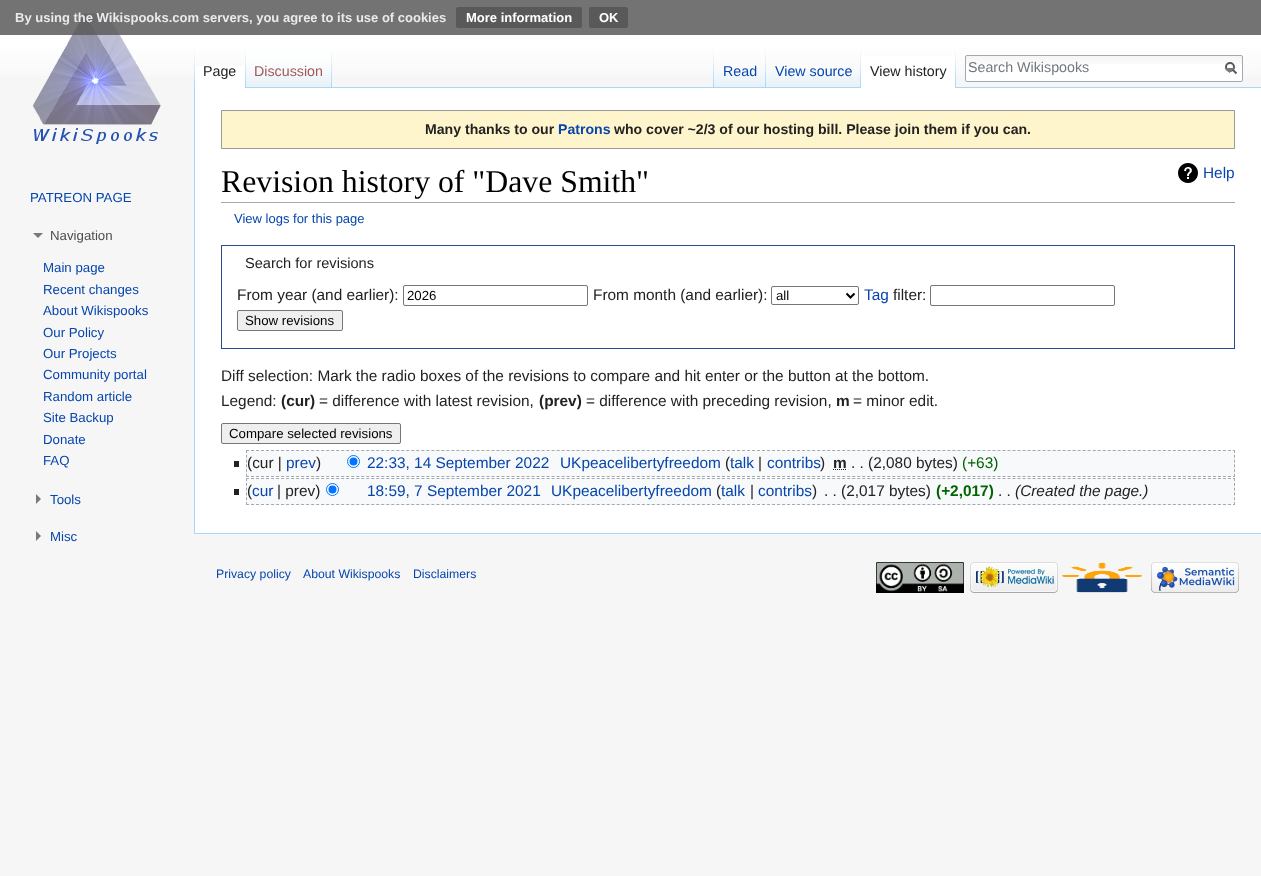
(async () => {
  const canvas = document.querySelector("canvas");
  canvas.width = 1261;
  canvas.height = 876;
  const ctx = canvas.getContext("2d");
  ctx.miterLimit = 4;
  ctx.fontKerning = "normal";
  async function loadImage(src) {
    const img = new Image();
    img.src = src;
    await img.decode();
    return img;
  }
  let gradient, path;

  ctx.fillStyle = "#f6f6f6";
  ctx.fillRect(0, 0, 1261, 876);
  gradient = ctx.createLinearGradient(631, 0, 631, 88);
  gradient.addColorStop(0.5, "#ffffff");
  gradient.addColorStop(1, "#f6f6f6");
  ctx.fillStyle = gradient;
  ctx.fillRect(0, 0, 1261, 76);
  ctx.drawImage(await loadImage("img/8.png"), 32, 13, 129, 131);
  ctx.fillStyle = "rgba(90, 90, 90, 0.85)";
  ctx.fillRect(0, 0, 1261, 35);
  ctx.fillStyle = "#595959";
  ctx.beginPath();
  ctx.roundRect(456, 7, 126, 21, 2);
  ctx.fill();
  ctx.beginPath();
  ctx.roundRect(589, 7, 39, 21, 2);
  ctx.fill();
  ctx.drawImage(await loadImage("img/1.png"), 194, 50, 1, 37);
  ctx.fillStyle = "#ffffff";
  ctx.fillRect(195, 66, 50, 22);
  ctx.drawImage(await loadImage("img/2.png"), 245, 50, 1, 38);
  ctx.drawImage(await loadImage("img/3.png"), 246, 50, 85, 37);
  ctx.drawImage(await loadImage("img/1.png"), 331, 50, 1, 37);
  ctx.drawImage(await loadImage("img/1.png"), 713, 50, 1, 37);
  ctx.drawImage(await loadImage("img/4.png"), 714, 70, 51, 17);
  ctx.drawImage(await loadImage("img/1.png"), 765, 50, 1, 37);
  ctx.drawImage(await loadImage("img/5.png"), 766, 70, 94, 17);
  ctx.drawImage(await loadImage("img/1.png"), 860, 50, 1, 37);
  ctx.fillStyle = "#a7d7f9";
  ctx.fillRect(246, 87, 1015, 1);
  ctx.fillStyle = "#ffffff";
  ctx.fillRect(861, 56, 94, 32);
  ctx.drawImage(await loadImage("img/2.png"), 955, 50, 1, 38);
  ctx.beginPath();
  ctx.roundRect(965, 55, 278, 27, 2);
  ctx.fill();
  ctx.drawImage(await loadImage("img/6.png"), 965, 56, 278, 8);
  ctx.beginPath();
  ctx.roundRect(965.5, 55.5, 277, 26, 1.5);
  ctx.strokeStyle = "#a2a9b1";
  ctx.stroke();
  path = new Path2D("M1236.5 73.5L1232.5 69.5");
  ctx.strokeStyle = "#54595d";
  ctx.lineWidth = 2;
  ctx.stroke(path);
  ctx.beginPath();
  ctx.arc(1230, 67, 4, 0, Math.PI * 2);
  ctx.stroke();
  ctx.drawImage(await loadImage("img/7.png"), 1224, 68, 10, 5);
  ctx.fillStyle = "#797979";
  path = new Path2D("M43 233L38 238L33 233Z");
  ctx.fill(path);
  path = new Path2D("M36 494L41 499L36 504Z");
  ctx.fill(path);
  path = new Path2D("M36 531L41 536L36 541Z");
  ctx.fill(path);
  for (const [x, y, w, h, color] of [
    [195, 88, 1066, 445, "#ffffff"],
    [194, 533, 1067, 1, "#a7d7f9"],
    [194, 87, 1, 447, "#a7d7f9"],
  ]) {
    ctx.fillStyle = color;
    ctx.fillRect(x, y, w, h);
  }
  ctx.fillStyle = "#fff5cc";
  ctx.beginPath();
  ctx.rect(221.5, 110.5, 1013, 38);
  ctx.fill();
  ctx.strokeStyle = "#9a9a9a";
  ctx.lineWidth = 1;
  ctx.stroke();
  ctx.fillStyle = "#a2a9b1";
  ctx.fillRect(221, 202, 1014, 1);
  ctx.drawImage(await loadImage("img/9.png"), 1178, 163, 20, 20);
  ctx.strokeStyle = "#2a4b8d";
  ctx.strokeRect(221.5, 245.5, 1013, 103);
  ctx.beginPath();
  ctx.roundRect(403.5, 285.5, 184, 20, 1.5);
  ctx.strokeStyle = "#767676";
  ctx.stroke();
  ctx.beginPath();
  ctx.roundRect(771.5, 286.5, 87, 18, 1.5);
  ctx.stroke();
  path = new Path2D("M846.5 293.5L850.5 297.5L854.5 293.5");
  ctx.strokeStyle = "#000000";
  ctx.lineWidth = 2;
  ctx.stroke(path);
  ctx.beginPath();
  ctx.roundRect(930.5, 285.5, 184, 20, 1.5);
  ctx.strokeStyle = "#767676";
  ctx.lineWidth = 1;
  ctx.stroke();
  ctx.fillStyle = "#efefef";
  ctx.beginPath();
  ctx.roundRect(237.5, 310.5, 105, 20, 1.5);
  ctx.fill();
  ctx.stroke();
  ctx.beginPath();
  ctx.roundRect(221.5, 423.5, 179, 20, 1.5);
  ctx.fill();
  ctx.stroke();
  ctx.fillStyle = "#f8f9fa";
  ctx.fillRect(246, 450, 989, 27);
  path = new Path2D("M246 450.5H1235");
  ctx.strokeStyle = "#a2a9b1";
  ctx.setLineDash([3, 2.01]);
  ctx.stroke(path);
  path = new Path2D("M1234.5 450V477");
  ctx.setLineDash([3, 1.8]);
  ctx.stroke(path);
  path = new Path2D("M246 476.5H1235");
  ctx.setLineDash([3, 2.01]);
  ctx.stroke(path);
  path = new Path2D("M246.5 450V477");
  ctx.setLineDash([3, 1.8]);
  ctx.stroke(path);
  ctx.fillStyle = "#222222";
  ctx.fillRect(234, 461, 5, 6);
  ctx.fillStyle = "#ffffff";
  ctx.beginPath();
  ctx.arc(353.5, 461.5, 6, 0, Math.PI * 2);
  ctx.fill();
  ctx.strokeStyle = "#0075ff";
  ctx.setLineDash([]);
  ctx.stroke();
  ctx.fillStyle = "#0075ff";
  ctx.beginPath();
  ctx.arc(353.5, 461.5, 4, 0, Math.PI * 2);
  ctx.fill();
  path = new Path2D("M833 469.5H846.5");
  ctx.strokeStyle = "#222222";
  ctx.setLineDash([1, 1]);
  ctx.stroke(path);
  ctx.fillStyle = "#f8f9fa";
  ctx.fillRect(246, 478, 989, 27);
  path = new Path2D("M246 478.5H1235");
  ctx.strokeStyle = "#a2a9b1";
  ctx.setLineDash([3, 2.01]);
  ctx.stroke(path);
  path = new Path2D("M1234.5 478V505");
  ctx.setLineDash([3, 1.8]);
  ctx.stroke(path);
  path = new Path2D("M246 504.5H1235");
  ctx.setLineDash([3, 2.01]);
  ctx.stroke(path);
  path = new Path2D("M246.5 478V505");
  ctx.setLineDash([3, 1.8]);
  ctx.stroke(path);
  ctx.fillStyle = "#222222";
  ctx.fillRect(234, 489, 5, 6);
  ctx.fillStyle = "#ffffff";
  ctx.beginPath();
  ctx.arc(332.5, 489.5, 6, 0, Math.PI * 2);
  ctx.fill();
  ctx.strokeStyle = "#0075ff";
  ctx.setLineDash([]);
  ctx.stroke();
  ctx.fillStyle = "#0075ff";
  ctx.beginPath();
  ctx.arc(332.5, 489.5, 4, 0, Math.PI * 2);
  ctx.fill();
  ctx.drawImage(await loadImage("img/10.png"), 876, 562, 88, 31);
  ctx.drawImage(await loadImage("img/11.png"), 970, 562, 88, 31);
  ctx.drawImage(await loadImage("img/12.png"), 1061, 562, 82, 31);
  ctx.drawImage(await loadImage("img/13.png"), 1151, 562, 88, 31);
  ctx.font = "bold 13px Liberation Sans";
  ctx.fillStyle = "#eaeaea";
  ctx.fillText("By using the Wikispooks.com servers, you agree to its use of cookies", 15, 22);
  ctx.fillStyle = "#ffffff";
  ctx.fillText("More information", 466, 22);
  ctx.fillText("OK", 599, 22);
  ctx.font = "14.25px Liberation Sans";
  ctx.fillStyle = "#222222";
  ctx.fillText("Page", 203, 76);
  ctx.fillStyle = "#a55858";
  ctx.fillText("Discussion", 254, 76);
  ctx.fillStyle = "#0645ad";
  ctx.fillText("Read", 723, 76);
  ctx.fillText("View source", 775, 76);
  ctx.fillStyle = "#222222";
  ctx.fillText("View history", 870, 76);
  ctx.fillStyle = "#72777d";
  ctx.fillText("Search Wikispooks", 968, 72);
  ctx.font = "13.25px Liberation Sans";
  ctx.fillStyle = "#0645ad";
  ctx.fillText("PATREON PAGE", 30, 202);
  ctx.fillStyle = "#4d4d4d";
  ctx.fillText("Navigation", 50, 240);
  ctx.fillStyle = "#0645ad";
  for (const [text, x, y] of [
    ["Main page", 43, 272],
    ["Recent changes", 43, 294],
    ["About Wikispooks", 43, 315],
    ["Our Policy", 43, 337],
    ["Our Projects", 43, 358],
    ["Community portal", 43, 379],
    ["Random article", 43, 401],
    ["Site Backup", 43, 422],
    ["Donate", 43, 444],
    ["FAQ", 43, 465],
    ["Tools", 50, 504],
    ["Misc", 50, 541],
  ]) {
    ctx.fillText(text, x, y);
  }
  ctx.font = "bold 14.1px Liberation Sans";
  ctx.fillStyle = "#222222";
  ctx.fillText("Many thanks to our", 425, 134);
  ctx.fillStyle = "#0645ad";
  ctx.fillText("Patrons", 558, 134);
  ctx.fillStyle = "#222222";
  ctx.fillText("who cover ~2/3 of our hosting bill. Please join them if you can.", 614, 134);
  ctx.font = "31.75px Liberation Serif";
  ctx.fillStyle = "#000000";
  ctx.fillText("Revision history of \"Dave Smith\"", 221, 192);
  ctx.font = "15.4px Liberation Sans";
  ctx.fillStyle = "#0645ad";
  ctx.fillText("Help", 1203, 178);
  ctx.font = "13px Liberation Sans";
  ctx.fillText("View logs for this page", 234, 223);
  ctx.font = "14.6px Liberation Sans";
  ctx.fillStyle = "#222222";
  ctx.fillText("Search for revisions", 245, 268);
  ctx.font = "15.4px Liberation Sans";
  ctx.fillText("From year (and earlier):", 237, 300);
  ctx.font = "13.25px Liberation Sans";
  ctx.fillStyle = "#000000";
  ctx.fillText("2026", 407, 300);
  ctx.font = "15.4px Liberation Sans";
  ctx.fillStyle = "#222222";
  ctx.fillText("From month (and earlier):", 593, 300);
  ctx.font = "13.25px Liberation Sans";
  ctx.fillStyle = "#000000";
  ctx.fillText("all", 776, 300);
  ctx.font = "15.4px Liberation Sans";
  ctx.fillStyle = "#0645ad";
  ctx.fillText("Tag", 864, 300);
  ctx.fillStyle = "#222222";
  ctx.fillText("filter:", 893, 300);
  ctx.font = "13.25px Liberation Sans";
  ctx.fillStyle = "#000000";
  ctx.fillText("Show revisions", 245, 325);
  ctx.font = "15.4px Liberation Sans";
  ctx.fillStyle = "#222222";
  ctx.fillText("Diff selection: Mark the radio boxes of the revisions to compare and hit enter or the button at the bottom.", 221, 381);
  ctx.fillText("Legend:", 221, 406);
  ctx.font = "bold 15.4px Liberation Sans";
  ctx.fillText("(cur)", 281, 406);
  ctx.font = "15.4px Liberation Sans";
  ctx.fillText("= difference with latest revision,", 319, 406);
  ctx.font = "bold 15.4px Liberation Sans";
  ctx.fillText("(prev)", 539, 406);
  ctx.font = "15.4px Liberation Sans";
  ctx.fillText("= difference with preceding revision,", 586, 406);
  ctx.font = "bold 15.4px Liberation Sans";
  ctx.fillText("m", 836, 406);
  ctx.font = "15.4px Liberation Sans";
  ctx.fillText("= minor edit.", 853, 406);
  ctx.font = "13.25px Liberation Sans";
  ctx.fillStyle = "#000000";
  ctx.fillText("Compare selected revisions", 229, 438);
  ctx.font = "15.4px Liberation Sans";
  ctx.fillStyle = "#222222";
  ctx.fillText("(cur |", 247, 468);
  ctx.fillStyle = "#0645ad";
  ctx.fillText("prev", 286, 468);
  ctx.fillStyle = "#222222";
  ctx.fillText(")", 316, 468);
  ctx.fillStyle = "#0645ad";
  ctx.fillText("22:33, 14 September 2022", 367, 468);
  ctx.fillText("UKpeacelibertyfreedom", 560, 468);
  ctx.fillStyle = "#222222";
  ctx.fillText("(", 725, 468);
  ctx.fillStyle = "#0645ad";
  ctx.fillText("talk", 730, 468);
  ctx.fillStyle = "#222222";
  ctx.fillText("|", 758, 468);
  ctx.fillStyle = "#0645ad";
  ctx.fillText("contribs", 767, 468);
  ctx.fillStyle = "#222222";
  ctx.fillText(")", 820, 468);
  ctx.font = "bold 15.4px Liberation Sans";
  ctx.fillText("m", 833, 468);
  ctx.font = "15.4px Liberation Sans";
  ctx.fillText(". . (2,080 bytes)", 851, 468);
  ctx.fillStyle = "#006400";
  ctx.fillText("(+63)", 962, 468);
  ctx.fillStyle = "#222222";
  ctx.fillText("(", 247, 496);
  ctx.fillStyle = "#0645ad";
  ctx.fillText("cur", 252, 496);
  ctx.fillStyle = "#222222";
  ctx.fillText("| prev)", 277, 496);
  ctx.fillStyle = "#0645ad";
  ctx.fillText("18:59, 7 September 2021", 367, 496);
  ctx.fillText("UKpeacelibertyfreedom", 551, 496);
  ctx.fillStyle = "#222222";
  ctx.fillText("(", 716, 496);
  ctx.fillStyle = "#0645ad";
  ctx.fillText("talk", 721, 496);
  ctx.fillStyle = "#222222";
  ctx.fillText("|", 750, 496);
  ctx.fillStyle = "#0645ad";
  ctx.fillText("contribs", 758, 496);
  ctx.fillStyle = "#222222";
  ctx.fillText(")", 812, 496);
  ctx.fillText(". . (2,017 bytes)", 824, 496);
  ctx.font = "bold 15.4px Liberation Sans";
  ctx.fillStyle = "#006400";
  ctx.fillText("(+2,017)", 936, 496);
  ctx.font = "15.4px Liberation Sans";
  ctx.fillStyle = "#222222";
  ctx.fillText(". .", 998, 496);
  ctx.font = "italic 15.4px Liberation Sans";
  ctx.fillText("(Created the page.)", 1015, 496);
  ctx.font = "12.25px Liberation Sans";
  ctx.fillStyle = "#0645ad";
  for (const [text, x, y] of [
    ["Privacy policy", 216, 578],
    ["About Wikispooks", 303, 578],
    ["Disclaimers", 413, 578],
  ]) {
    ctx.fillText(text, x, y);
  }
})();
